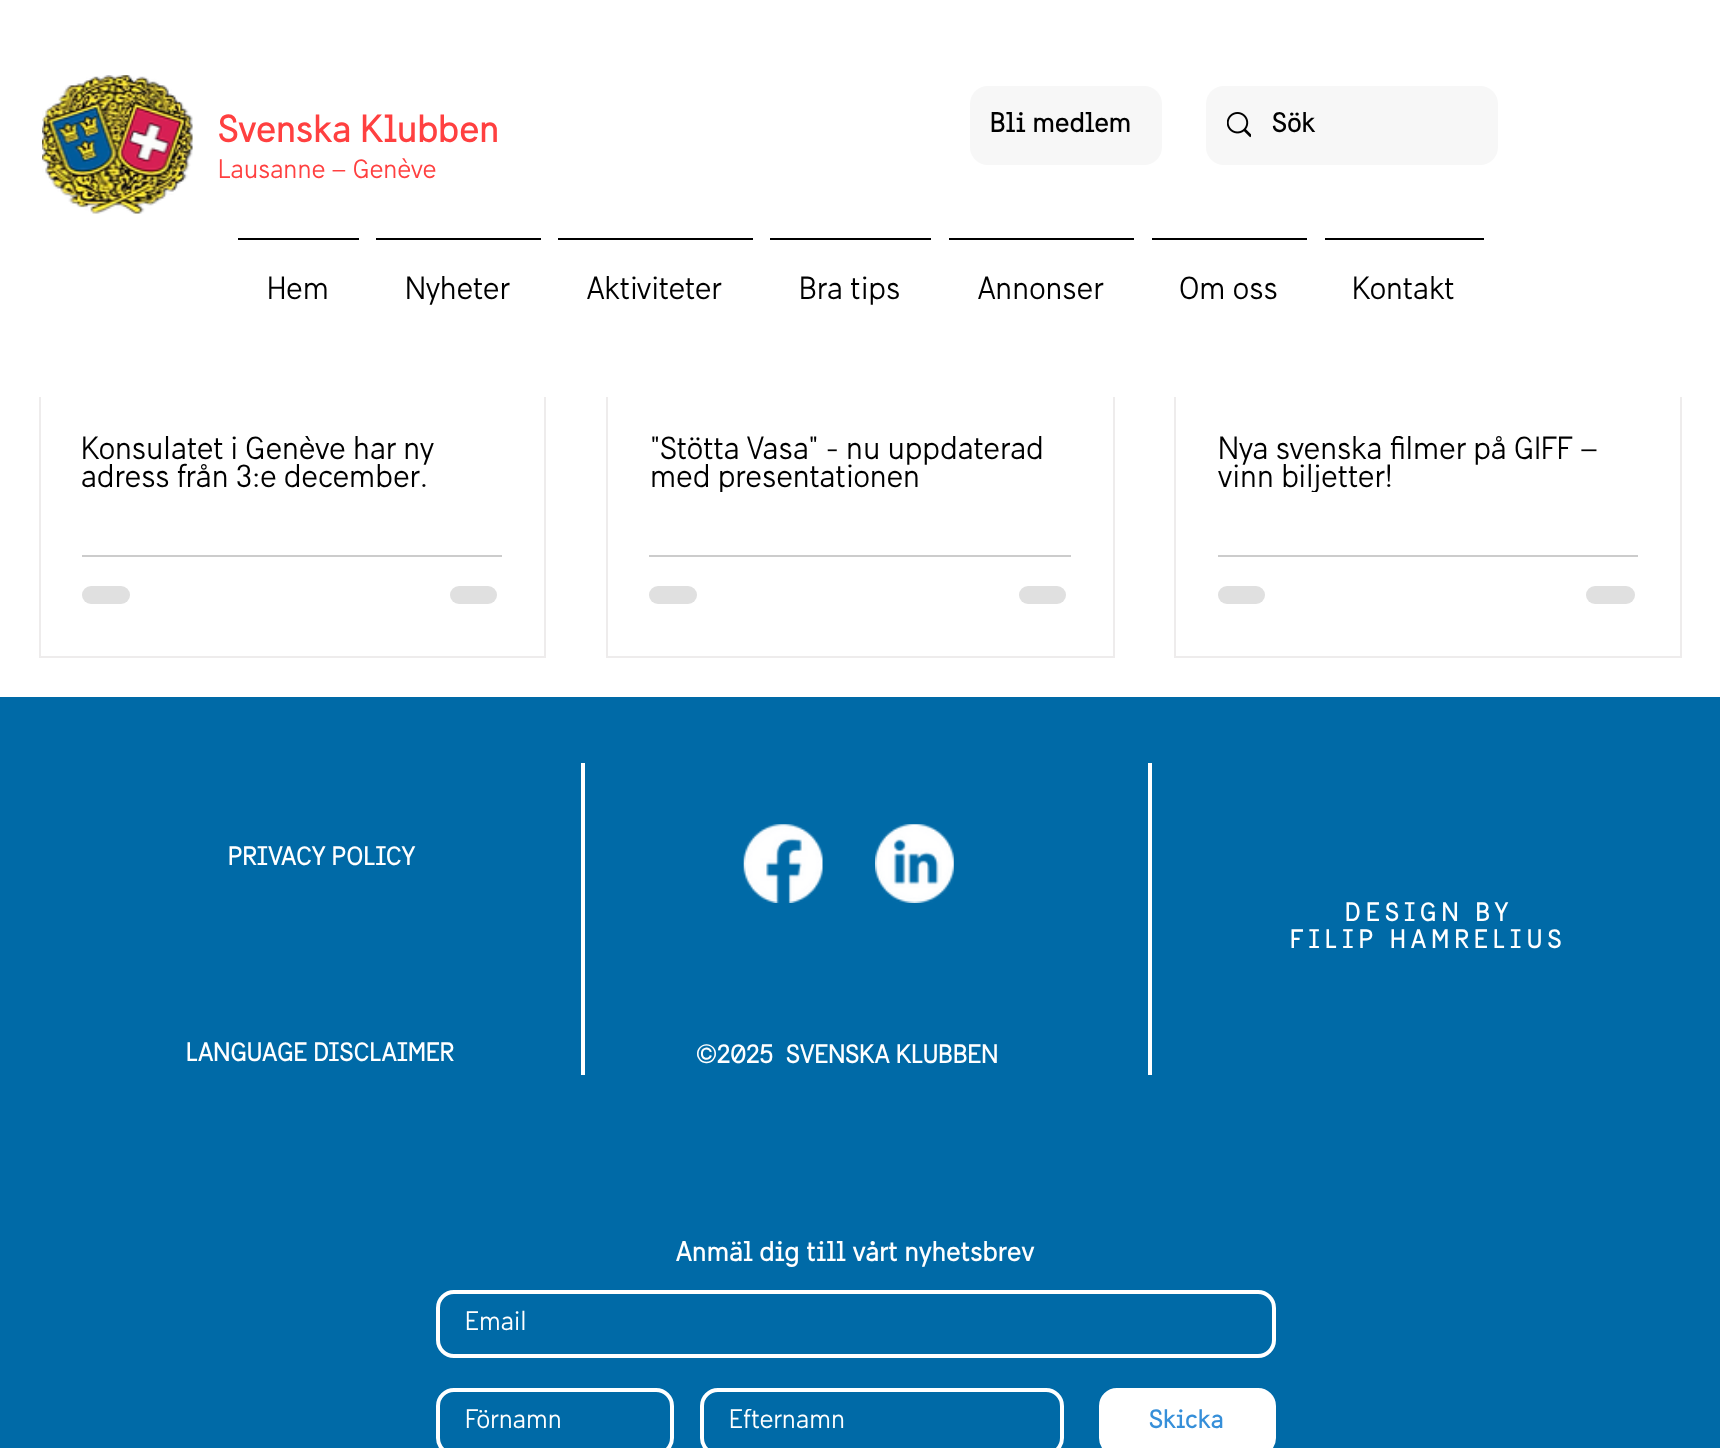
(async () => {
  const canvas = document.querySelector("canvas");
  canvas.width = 1720;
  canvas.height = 1448;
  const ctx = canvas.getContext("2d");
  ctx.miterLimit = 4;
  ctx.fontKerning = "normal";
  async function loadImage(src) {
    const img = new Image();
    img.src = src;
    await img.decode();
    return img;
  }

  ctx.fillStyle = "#ffffff";
  ctx.fillRect(0, 0, 1720, 1448);
  ctx.strokeStyle = "#eeecec";
  ctx.lineWidth = 2;
  ctx.strokeRect(40, 110, 505, 547);
  ctx.strokeRect(607, 110, 507, 547);
  ctx.strokeRect(1175, 110, 506, 547);
  ctx.fillRect(39, 109, 1643, 288);
  ctx.drawImage(await loadImage("img/1.png"), 42, 75, 151, 139);
  ctx.fillStyle = "#f7f7f7";
  ctx.beginPath();
  ctx.roundRect(970, 86, 192, 79, 18);
  ctx.fill();
  ctx.beginPath();
  ctx.roundRect(1206, 86, 292, 79, 18);
  ctx.fill();
  ctx.drawImage(await loadImage("img/2.png"), 1227, 112, 24, 26);
  for (const [x, y, w, h, color] of [
    [238, 238, 121, 2, "#000000"],
    [376, 238, 165, 2, "#000000"],
    [558, 238, 195, 2, "#000000"],
    [770, 238, 161, 2, "#000000"],
    [949, 238, 185, 2, "#000000"],
    [1152, 238, 155, 2, "#000000"],
    [1325, 238, 159, 2, "#000000"],
    [82, 555, 420, 2, "#cccccc"],
  ]) {
    ctx.fillStyle = color;
    ctx.fillRect(x, y, w, h);
  }
  ctx.fillStyle = "#e0e0e0";
  ctx.beginPath();
  ctx.roundRect(82, 586, 48, 18, 9);
  ctx.fill();
  ctx.beginPath();
  ctx.roundRect(450, 586, 47, 18, 9);
  ctx.fill();
  ctx.fillStyle = "#cccccc";
  ctx.fillRect(649, 555, 422, 2);
  ctx.fillStyle = "#e0e0e0";
  ctx.beginPath();
  ctx.roundRect(649, 586, 48, 18, 9);
  ctx.fill();
  ctx.beginPath();
  ctx.roundRect(1019, 586, 47, 18, 9);
  ctx.fill();
  ctx.fillStyle = "#cccccc";
  ctx.fillRect(1218, 555, 420, 2);
  ctx.fillStyle = "#e0e0e0";
  ctx.beginPath();
  ctx.roundRect(1218, 586, 47, 18, 9);
  ctx.fill();
  ctx.beginPath();
  ctx.roundRect(1586, 586, 49, 18, 9);
  ctx.fill();
  ctx.fillStyle = "#006aa7";
  ctx.fillRect(0, 697, 1720, 751);
  ctx.fillStyle = "#ffffff";
  ctx.fillRect(581, 763, 4, 312);
  ctx.drawImage(await loadImage("img/3.png"), 743, 824, 80, 79);
  ctx.drawImage(await loadImage("img/4.png"), 875, 824, 79, 79);
  ctx.fillRect(1148, 763, 4, 312);
  ctx.beginPath();
  ctx.roundRect(438, 1292, 836, 64, 16);
  ctx.strokeStyle = "#ffffff";
  ctx.lineWidth = 4;
  ctx.stroke();
  ctx.beginPath();
  ctx.roundRect(438, 1390, 234, 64, 16);
  ctx.stroke();
  ctx.beginPath();
  ctx.roundRect(702, 1390, 360, 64, 16);
  ctx.stroke();
  ctx.beginPath();
  ctx.roundRect(1101, 1390, 173, 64, 16);
  ctx.fill();
  ctx.stroke();
  ctx.font = "38.5px 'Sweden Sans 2'";
  ctx.fillStyle = "#ff4040";
  ctx.fillText("Svenska Klubben", 218, 142);
  ctx.font = "26.25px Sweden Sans";
  ctx.fillText("Lausanne – Genève", 218, 178);
  ctx.font = "28px 'Sweden Sans 2'";
  ctx.fillStyle = "#000000";
  ctx.fillText("Bli medlem", 990, 132);
  ctx.fillText("Sök", 1272, 132);
  ctx.font = "31.5px Sweden Sans";
  for (const [text, x, y] of [
    ["Hem", 267, 299],
    ["Nyheter", 405, 299],
    ["Aktiviteter", 587, 299],
    ["Bra tips", 799, 299],
    ["Annonser", 978, 299],
    ["Om oss", 1179, 299],
    ["Kontakt", 1352, 299],
  ]) {
    ctx.fillText(text, x, y);
  }
  ctx.save();
  ctx.beginPath();
  ctx.rect(82, 436, 420, 56);
  ctx.clip();
  ctx.fillText("Konsulatet i Genève har ny", 81, 459);
  ctx.restore();
  ctx.fillText("adress från 3:e december.", 81, 487);
  ctx.fillText("\"Stötta Vasa\" - nu uppdaterad", 650, 459);
  ctx.save();
  ctx.beginPath();
  ctx.rect(649, 436, 422, 56);
  ctx.clip();
  ctx.fillText("med presentationen", 650, 487);
  ctx.restore();
  ctx.save();
  ctx.beginPath();
  ctx.rect(1218, 436, 420, 56);
  ctx.clip();
  ctx.fillText("Nya svenska filmer på GIFF –", 1218, 459);
  ctx.fillText("vinn biljetter!", 1218, 487);
  ctx.restore();
  ctx.font = "26.25px 'Sweden Sans 2'";
  ctx.fillStyle = "#ffffff";
  ctx.fillText("PRIVACY POLICY", 228, 865);
  ctx.letterSpacing = "5.25px";
  ctx.fillText("DESIGN BY", 1345, 921);
  ctx.fillText("FILIP HAMRELIUS", 1290, 948);
  ctx.letterSpacing = "0px";
  ctx.fillText("LANGUAGE DISCLAIMER", 186, 1061);
  ctx.fillText("©2025  SVENSKA KLUBBEN", 696, 1063);
  ctx.font = "28px 'Sweden Sans 2'";
  ctx.fillText("Anmäl dig till vårt nyhetsbrev", 676, 1261);
  ctx.font = "26.25px Sweden Sans";
  ctx.fillText("Email", 465, 1330);
  ctx.fillText("Förnamn", 465, 1428);
  ctx.save();
  ctx.beginPath();
  ctx.rect(730, 1409, 325, 24);
  ctx.clip();
  ctx.fillText("Efternamn", 729, 1428);
  ctx.restore();
  ctx.font = "26.25px 'Sweden Sans 2'";
  ctx.fillStyle = "#368fd9";
  ctx.fillText("Skicka", 1149, 1428);
})();
